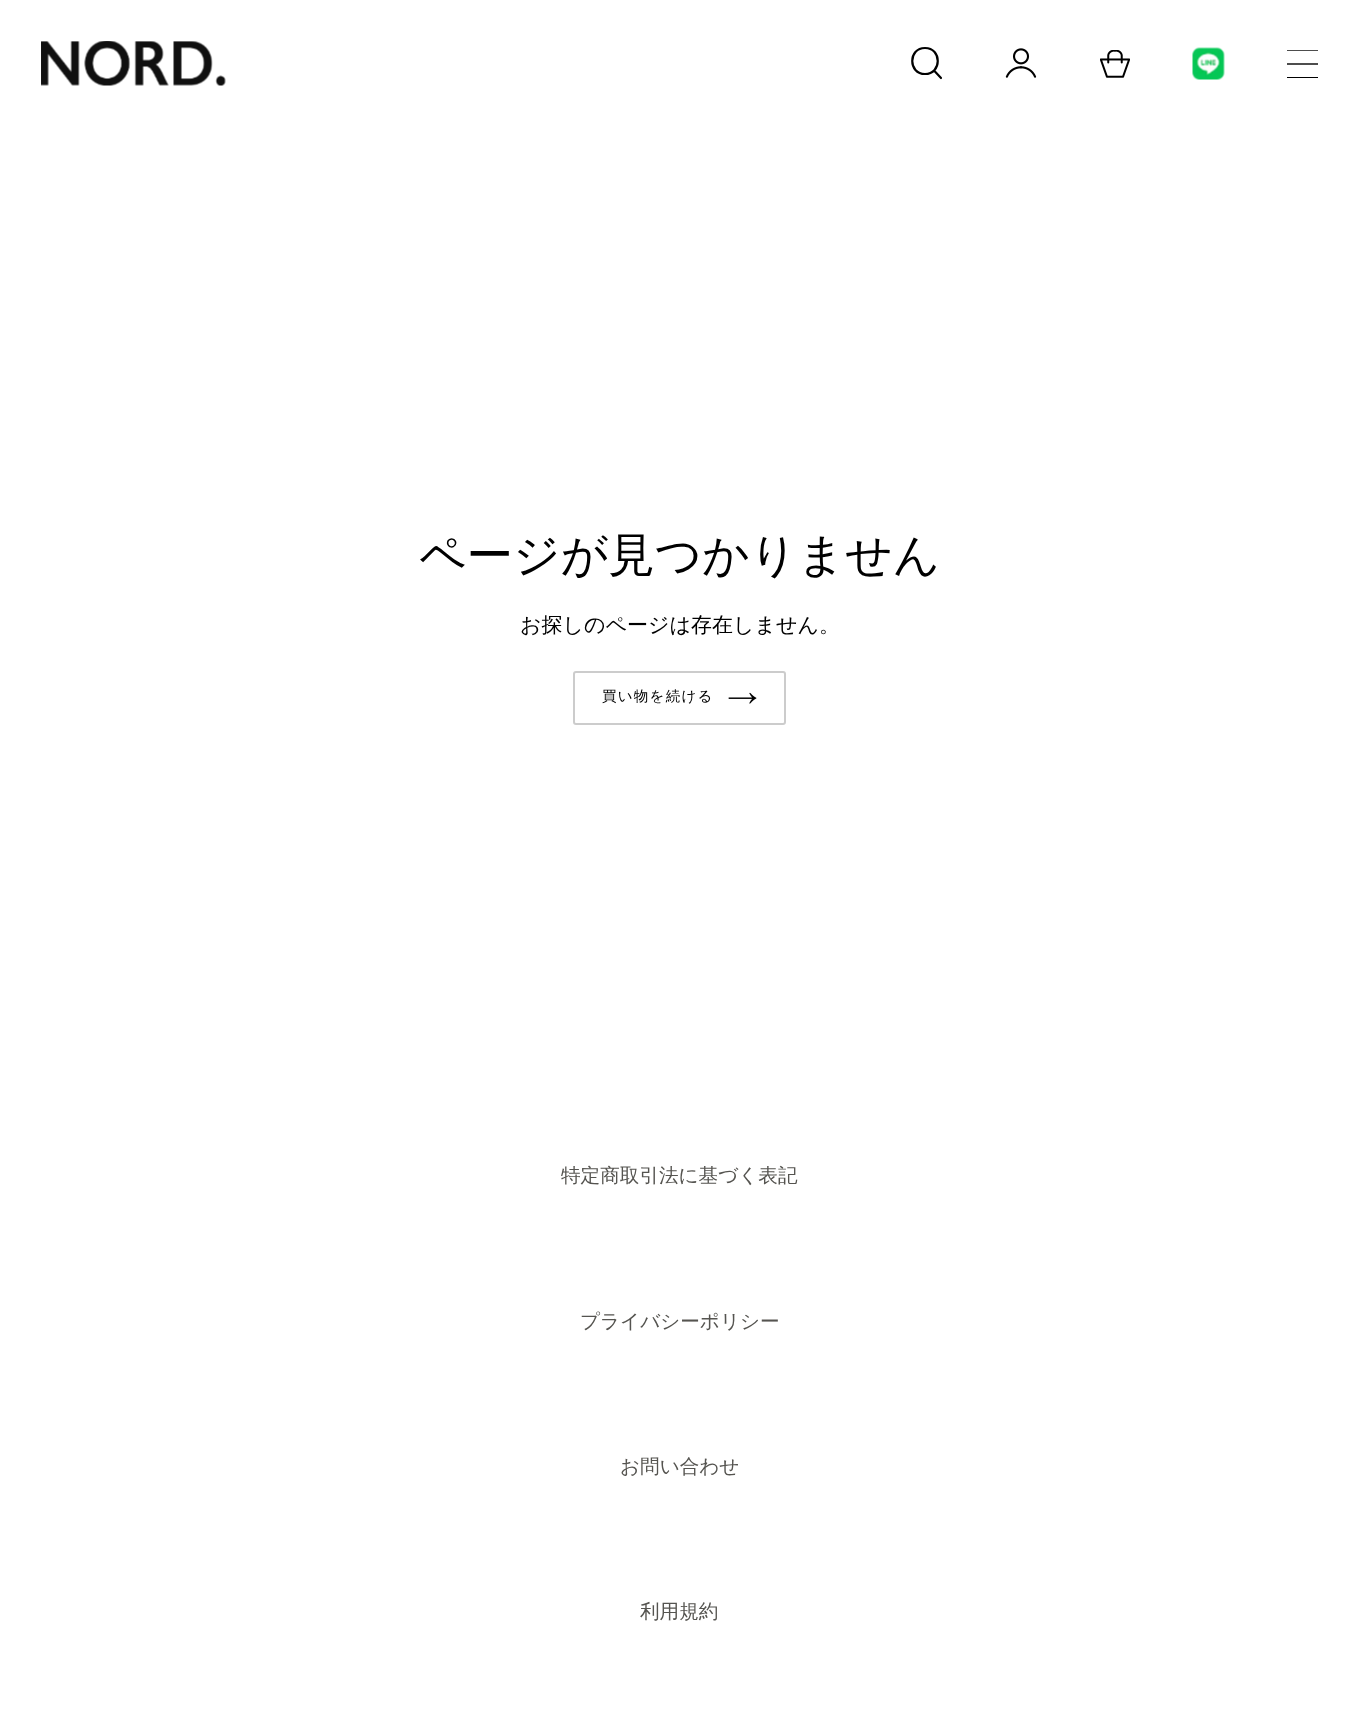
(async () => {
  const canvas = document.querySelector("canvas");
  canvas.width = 1358;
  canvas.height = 1722;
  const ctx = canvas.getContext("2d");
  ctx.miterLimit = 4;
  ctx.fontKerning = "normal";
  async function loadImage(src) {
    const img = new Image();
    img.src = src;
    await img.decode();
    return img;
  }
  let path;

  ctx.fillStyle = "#ffffff";
  ctx.fillRect(0, 0, 1358, 1722);
  ctx.drawImage(await loadImage("img/1.png"), 41, 41, 185, 45);
  path = new Path2D("M925 74C942 74 942 48 925 48C908 48 908 74 925 74ZM934 70.5L941 78");
  ctx.strokeStyle = "#000000";
  ctx.lineWidth = 2.2;
  ctx.lineCap = "round";
  ctx.lineJoin = "round";
  ctx.stroke(path);
  ctx.drawImage(await loadImage("img/2.png"), 1005, 48, 32, 30);
  ctx.drawImage(await loadImage("img/3.png"), 1100, 50, 30, 28);
  ctx.drawImage(await loadImage("img/4.png"), 1192, 47, 33, 33);
  ctx.save();
  ctx.beginPath();
  ctx.rect(1287, 50, 32, 28);
  ctx.clip();
  path = new Path2D("M1287 50H1318");
  ctx.lineWidth = 1.4;
  ctx.lineCap = "butt";
  ctx.lineJoin = "miter";
  ctx.stroke(path);
  ctx.restore();
  path = new Path2D("M1287 64H1318");
  ctx.lineWidth = 1.4;
  ctx.lineCap = "butt";
  ctx.lineJoin = "miter";
  ctx.stroke(path);
  ctx.fillStyle = "#000000";
  ctx.fillRect(1287, 77, 31, 1);
  ctx.beginPath();
  ctx.roundRect(574, 672, 211, 52, 2);
  ctx.strokeStyle = "#cccccc";
  ctx.lineWidth = 2;
  ctx.stroke();
  ctx.drawImage(await loadImage("img/5.png"), 728, 692, 29, 12);
  ctx.font = "500 46.5px WenQuanYi Zen Hei";
  ctx.fillText("ページが見つかりません", 419, 571);
  ctx.font = "500 21px WenQuanYi Zen Hei";
  ctx.fillText("お探しのページは存在しません。", 520, 632);
  ctx.letterSpacing = "1.25px";
  ctx.font = "500 14.5px WenQuanYi Zen Hei";
  ctx.fillText("買い物を続ける", 602, 701);
  ctx.letterSpacing = "0px";
  ctx.font = "500 19.6px WenQuanYi Zen Hei";
  ctx.fillStyle = "#555450";
  for (const [text, x, y] of [
    ["特定商取引法に基づく表記", 561, 1182],
    ["プライバシーポリシー", 580, 1328],
    ["お問い合わせ", 620, 1473],
    ["利用規約", 640, 1618],
  ]) {
    ctx.fillText(text, x, y);
  }
})();
